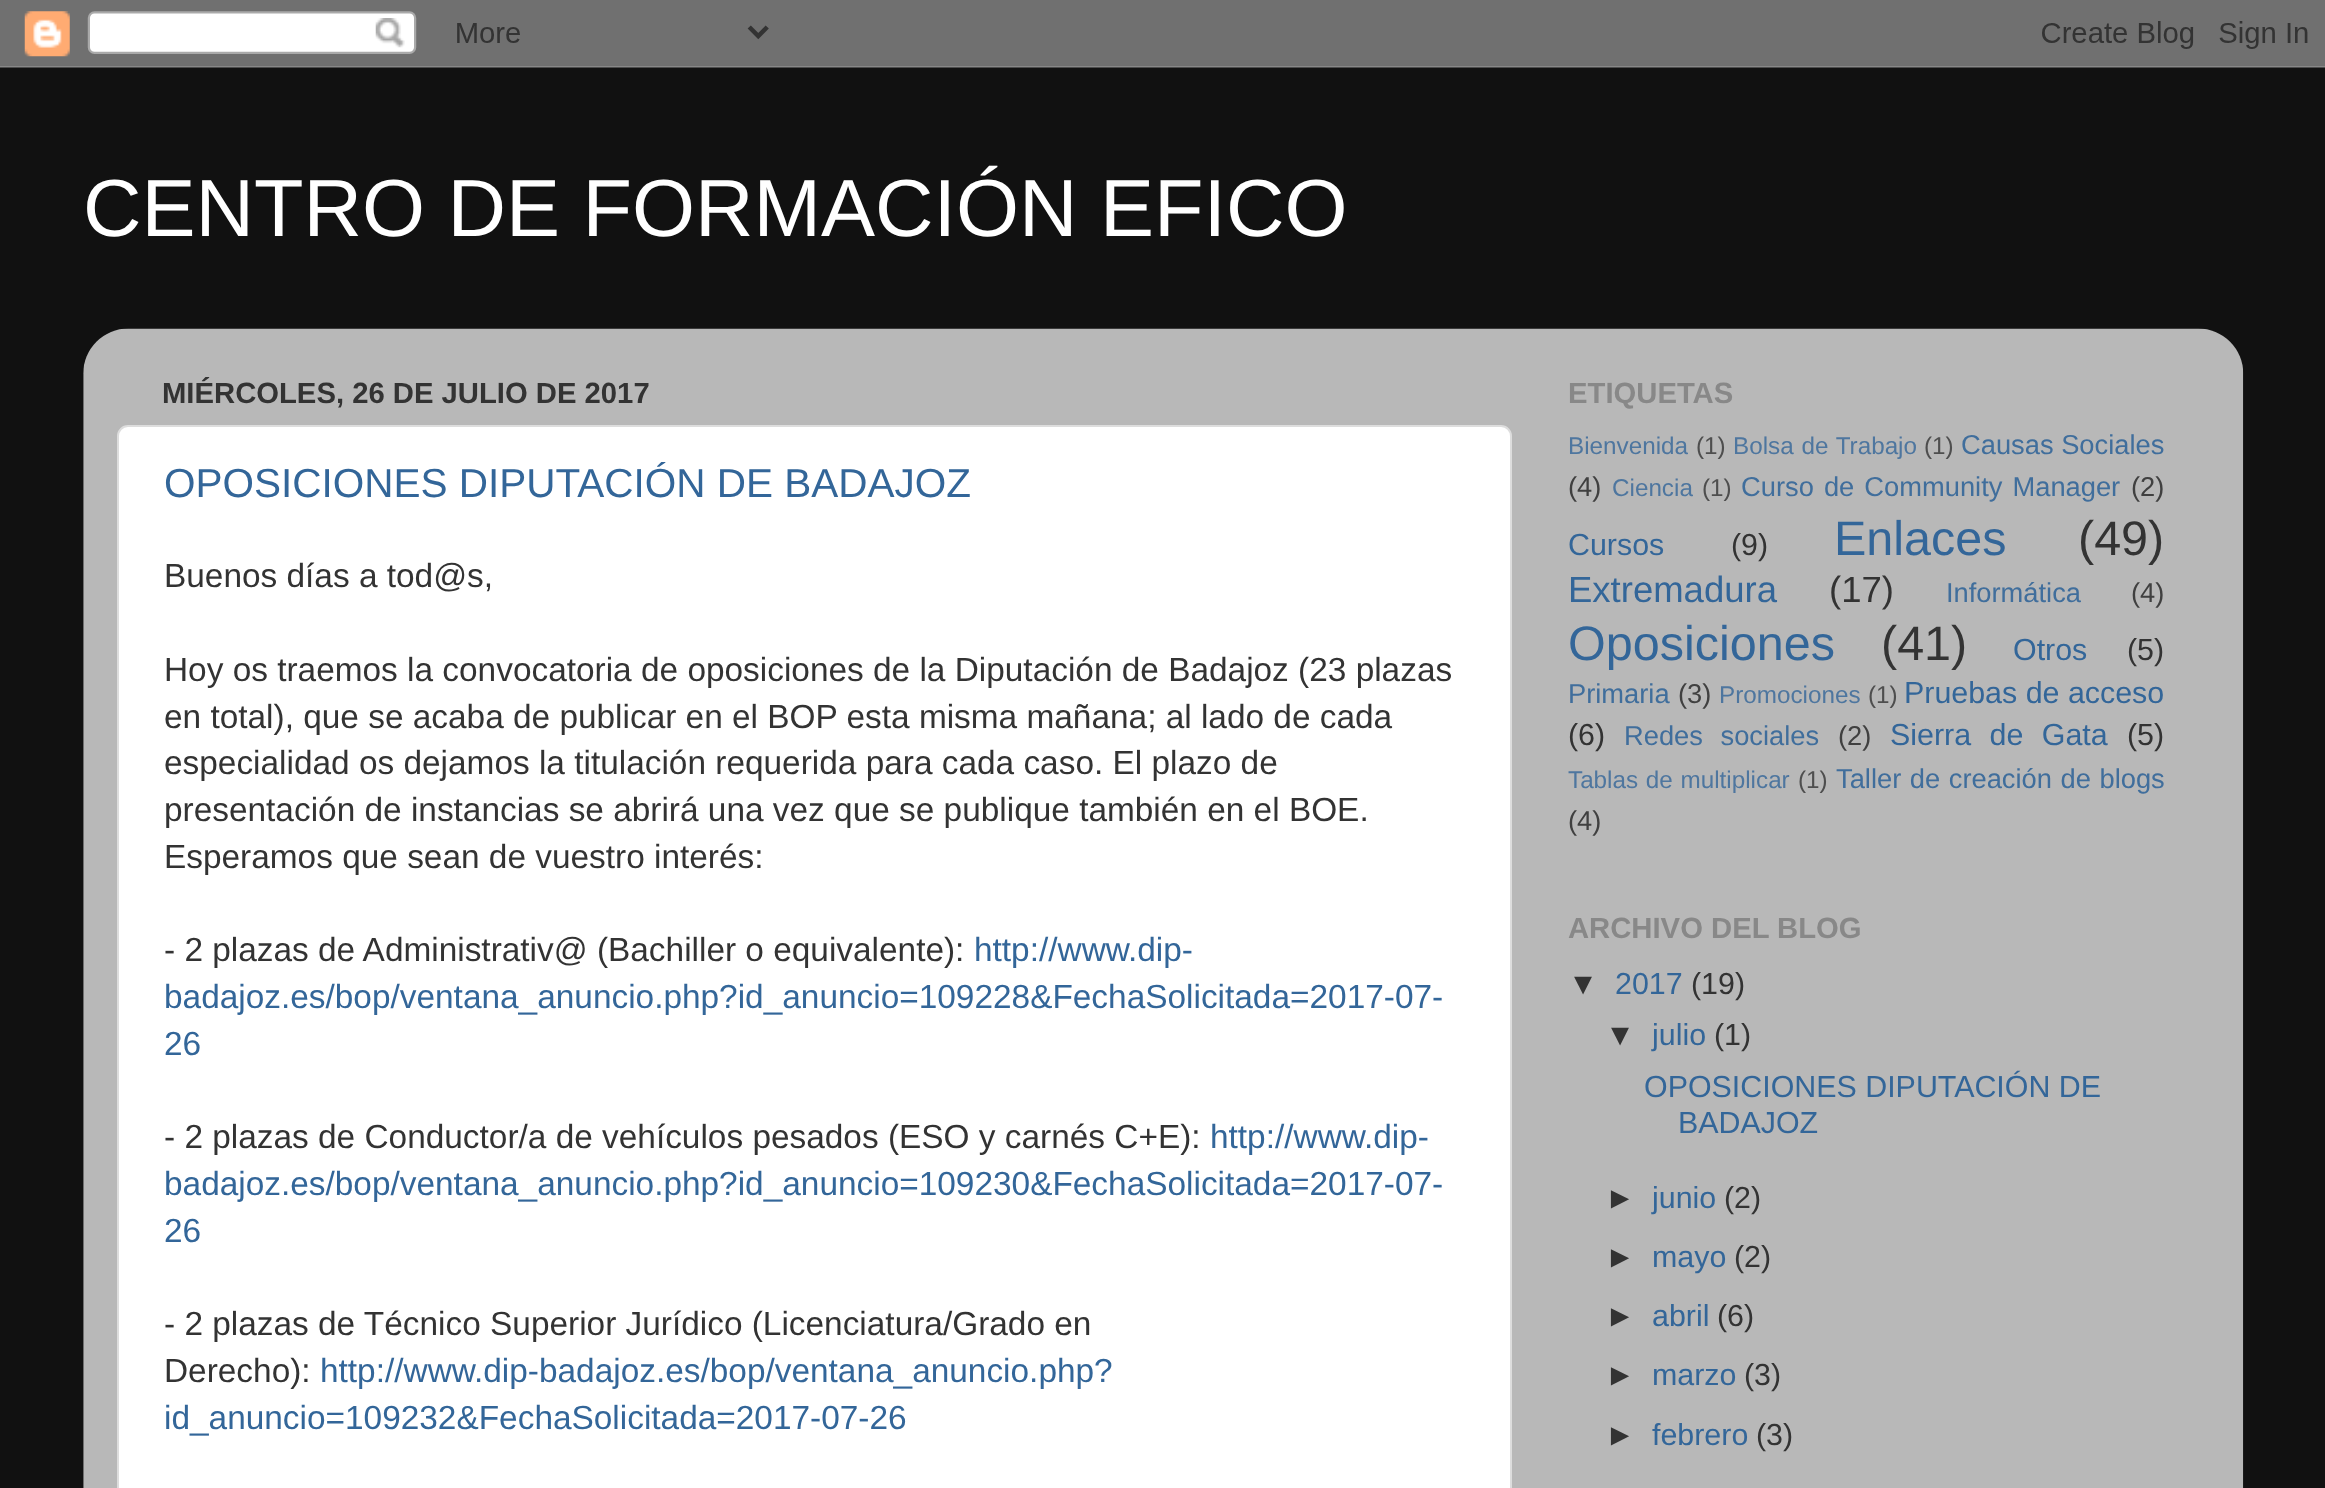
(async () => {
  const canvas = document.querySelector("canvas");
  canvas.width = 2325;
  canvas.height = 1488;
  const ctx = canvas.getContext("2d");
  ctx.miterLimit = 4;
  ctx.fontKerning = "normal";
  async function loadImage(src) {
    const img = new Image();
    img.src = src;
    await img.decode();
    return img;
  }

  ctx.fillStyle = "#111111";
  ctx.fillRect(0, 0, 2325, 1488);
  ctx.drawImage(await loadImage("img/1.png"), 0, 0, 2325, 68);
  ctx.drawImage(await loadImage("img/2.png"), 83, 328, 2161, 1160);
  ctx.fillStyle = "#ffffff";
  ctx.beginPath();
  ctx.roundRect(118, 426, 1393, 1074, 10);
  ctx.fill();
  ctx.strokeStyle = "#dddddd";
  ctx.lineWidth = 2;
  ctx.stroke();
  ctx.font = "81px Liberation Sans";
  ctx.fillText("CENTRO DE FORMACIÓN EFICO", 83, 236);
  ctx.font = "bold 29.25px Liberation Sans";
  ctx.fillStyle = "#333333";
  ctx.fillText("MIÉRCOLES, 26 DE JULIO DE 2017", 162, 403);
  ctx.font = "40.5px Liberation Sans";
  ctx.fillStyle = "#336699";
  ctx.fillText("OPOSICIONES DIPUTACIÓN DE BADAJOZ", 164, 497);
  ctx.font = "33.4px Liberation Sans";
  ctx.fillStyle = "#333333";
  for (const [text, x, y] of [
    ["Buenos días a tod@s,", 164, 587],
    ["Hoy os traemos la convocatoria de oposiciones de la Diputación de Badajoz (23 plazas", 164, 681],
    ["en total), que se acaba de publicar en el BOP esta misma mañana; al lado de cada", 164, 728],
    ["especialidad os dejamos la titulación requerida para cada caso. El plazo de", 164, 774],
    ["presentación de instancias se abrirá una vez que se publique también en el BOE.", 164, 821],
    ["Esperamos que sean de vuestro interés:", 164, 868],
    ["- 2 plazas de Administrativ@ (Bachiller o equivalente):", 164, 961],
  ]) {
    ctx.fillText(text, x, y);
  }
  ctx.fillStyle = "#336699";
  for (const [text, x, y] of [
    ["http://www.dip-", 974, 961],
    ["badajoz.es/bop/ventana_anuncio.php?id_anuncio=109228&FechaSolicitada=2017-07-", 164, 1008],
    ["26", 164, 1055],
  ]) {
    ctx.fillText(text, x, y);
  }
  ctx.fillStyle = "#333333";
  ctx.fillText("- 2 plazas de Conductor/a de vehículos pesados (ESO y carnés C+E):", 164, 1148);
  ctx.fillStyle = "#336699";
  for (const [text, x, y] of [
    ["http://www.dip-", 1210, 1148],
    ["badajoz.es/bop/ventana_anuncio.php?id_anuncio=109230&FechaSolicitada=2017-07-", 164, 1195],
    ["26", 164, 1242],
  ]) {
    ctx.fillText(text, x, y);
  }
  ctx.fillStyle = "#333333";
  ctx.fillText("- 2 plazas de Técnico Superior Jurídico (Licenciatura/Grado en", 164, 1335);
  ctx.fillText("Derecho):", 164, 1382);
  ctx.fillStyle = "#336699";
  ctx.fillText("http://www.dip-badajoz.es/bop/ventana_anuncio.php?", 320, 1382);
  ctx.fillText("id_anuncio=109232&FechaSolicitada=2017-07-26", 164, 1429);
  ctx.font = "bold 29.25px Liberation Sans";
  ctx.fillStyle = "#888888";
  ctx.fillText("ETIQUETAS", 1568, 403);
  ctx.font = "24.25px Liberation Sans";
  ctx.fillStyle = "#4e769f";
  ctx.fillText("Bienvenida", 1568, 454);
  ctx.fillStyle = "#4e4e4e";
  ctx.fillText("(1)", 1696, 454);
  ctx.wordSpacing = "1px";
  ctx.fillStyle = "#4e769f";
  ctx.fillText("Bolsa de Trabajo", 1733, 454);
  ctx.wordSpacing = "0px";
  ctx.fillStyle = "#4e4e4e";
  ctx.fillText("(1)", 1924, 454);
  ctx.font = "27.3px Liberation Sans";
  ctx.fillStyle = "#406e9c";
  ctx.fillText("Causas Sociales", 1961, 454);
  ctx.fillStyle = "#404040";
  ctx.fillText("(4)", 1568, 496);
  ctx.font = "24.25px Liberation Sans";
  ctx.fillStyle = "#4e769f";
  ctx.fillText("Ciencia", 1612, 496);
  ctx.fillStyle = "#4e4e4e";
  ctx.fillText("(1)", 1702, 496);
  ctx.wordSpacing = "2.5px";
  ctx.font = "27.3px Liberation Sans";
  ctx.fillStyle = "#406e9c";
  ctx.fillText("Curso de Community Manager", 1741, 496);
  ctx.wordSpacing = "0px";
  ctx.fillStyle = "#404040";
  ctx.fillText("(2)", 2131, 496);
  ctx.font = "30.4px Liberation Sans";
  ctx.fillStyle = "#336699";
  ctx.fillText("Cursos", 1568, 555);
  ctx.fillStyle = "#333333";
  ctx.fillText("(9)", 1731, 555);
  ctx.font = "48.5px Liberation Sans";
  ctx.fillStyle = "#336699";
  ctx.fillText("Enlaces", 1834, 555);
  ctx.fillStyle = "#333333";
  ctx.fillText("(49)", 2078, 555);
  ctx.font = "36.5px Liberation Sans";
  ctx.fillStyle = "#336699";
  ctx.fillText("Extremadura", 1568, 602);
  ctx.fillStyle = "#333333";
  ctx.fillText("(17)", 1829, 602);
  ctx.font = "27.3px Liberation Sans";
  ctx.fillStyle = "#406e9c";
  ctx.fillText("Informática", 1946, 602);
  ctx.fillStyle = "#404040";
  ctx.fillText("(4)", 2131, 602);
  ctx.font = "48.5px Liberation Sans";
  ctx.fillStyle = "#336699";
  ctx.fillText("Oposiciones", 1568, 660);
  ctx.fillStyle = "#333333";
  ctx.fillText("(41)", 1881, 660);
  ctx.font = "30.4px Liberation Sans";
  ctx.fillStyle = "#336699";
  ctx.fillText("Otros", 2013, 660);
  ctx.fillStyle = "#333333";
  ctx.fillText("(5)", 2127, 660);
  ctx.font = "27.3px Liberation Sans";
  ctx.fillStyle = "#406e9c";
  ctx.fillText("Primaria", 1568, 703);
  ctx.fillStyle = "#404040";
  ctx.fillText("(3)", 1678, 703);
  ctx.font = "24.25px Liberation Sans";
  ctx.fillStyle = "#4e769f";
  ctx.fillText("Promociones", 1719, 703);
  ctx.fillStyle = "#4e4e4e";
  ctx.fillText("(1)", 1868, 703);
  ctx.font = "30.4px Liberation Sans";
  ctx.fillStyle = "#336699";
  ctx.fillText("Pruebas de acceso", 1904, 703);
  ctx.fillStyle = "#333333";
  ctx.fillText("(6)", 1568, 745);
  ctx.wordSpacing = "10px";
  ctx.font = "27.3px Liberation Sans";
  ctx.fillStyle = "#406e9c";
  ctx.fillText("Redes sociales", 1624, 745);
  ctx.wordSpacing = "0px";
  ctx.fillStyle = "#404040";
  ctx.fillText("(2)", 1838, 745);
  ctx.wordSpacing = "10px";
  ctx.font = "30.4px Liberation Sans";
  ctx.fillStyle = "#336699";
  ctx.fillText("Sierra de Gata", 1890, 745);
  ctx.wordSpacing = "0px";
  ctx.fillStyle = "#333333";
  ctx.fillText("(5)", 2127, 745);
  ctx.wordSpacing = "1px";
  ctx.font = "24.25px Liberation Sans";
  ctx.fillStyle = "#4e769f";
  ctx.fillText("Tablas de multiplicar", 1568, 788);
  ctx.wordSpacing = "0px";
  ctx.fillStyle = "#4e4e4e";
  ctx.fillText("(1)", 1798, 788);
  ctx.wordSpacing = "1px";
  ctx.font = "27.3px Liberation Sans";
  ctx.fillStyle = "#406e9c";
  ctx.fillText("Taller de creación de blogs", 1836, 788);
  ctx.wordSpacing = "0px";
  ctx.fillStyle = "#404040";
  ctx.fillText("(4)", 1568, 830);
  ctx.font = "bold 29.25px Liberation Sans";
  ctx.fillStyle = "#888888";
  ctx.fillText("ARCHIVO DEL BLOG", 1568, 938);
  ctx.font = "30.4px Liberation Sans";
  ctx.fillStyle = "#333333";
  ctx.fillText("▼", 1568, 994);
  ctx.fillStyle = "#336699";
  ctx.fillText("2017", 1615, 994);
  ctx.fillStyle = "#333333";
  ctx.fillText("(19)", 1691, 994);
  ctx.fillText("▼", 1605, 1045);
  ctx.fillStyle = "#336699";
  ctx.fillText("julio", 1652, 1045);
  ctx.fillStyle = "#333333";
  ctx.fillText("(1)", 1714, 1045);
  ctx.fillStyle = "#336699";
  ctx.fillText("OPOSICIONES DIPUTACIÓN DE", 1644, 1097);
  ctx.fillText("BADAJOZ", 1678, 1133);
  ctx.fillStyle = "#333333";
  ctx.fillText("►", 1605, 1208);
  ctx.fillStyle = "#336699";
  ctx.fillText("junio", 1652, 1208);
  ctx.fillStyle = "#333333";
  ctx.fillText("(2)", 1724, 1208);
  ctx.fillText("►", 1605, 1267);
  ctx.fillStyle = "#336699";
  ctx.fillText("mayo", 1652, 1267);
  ctx.fillStyle = "#333333";
  ctx.fillText("(2)", 1734, 1267);
  ctx.fillText("►", 1605, 1326);
  ctx.fillStyle = "#336699";
  ctx.fillText("abril", 1652, 1326);
  ctx.fillStyle = "#333333";
  ctx.fillText("(6)", 1717, 1326);
  ctx.fillText("►", 1605, 1385);
  ctx.fillStyle = "#336699";
  ctx.fillText("marzo", 1652, 1385);
  ctx.fillStyle = "#333333";
  ctx.fillText("(3)", 1744, 1385);
  ctx.fillText("►", 1605, 1445);
  ctx.fillStyle = "#336699";
  ctx.fillText("febrero", 1652, 1445);
  ctx.fillStyle = "#333333";
  ctx.fillText("(3)", 1756, 1445);
})();
